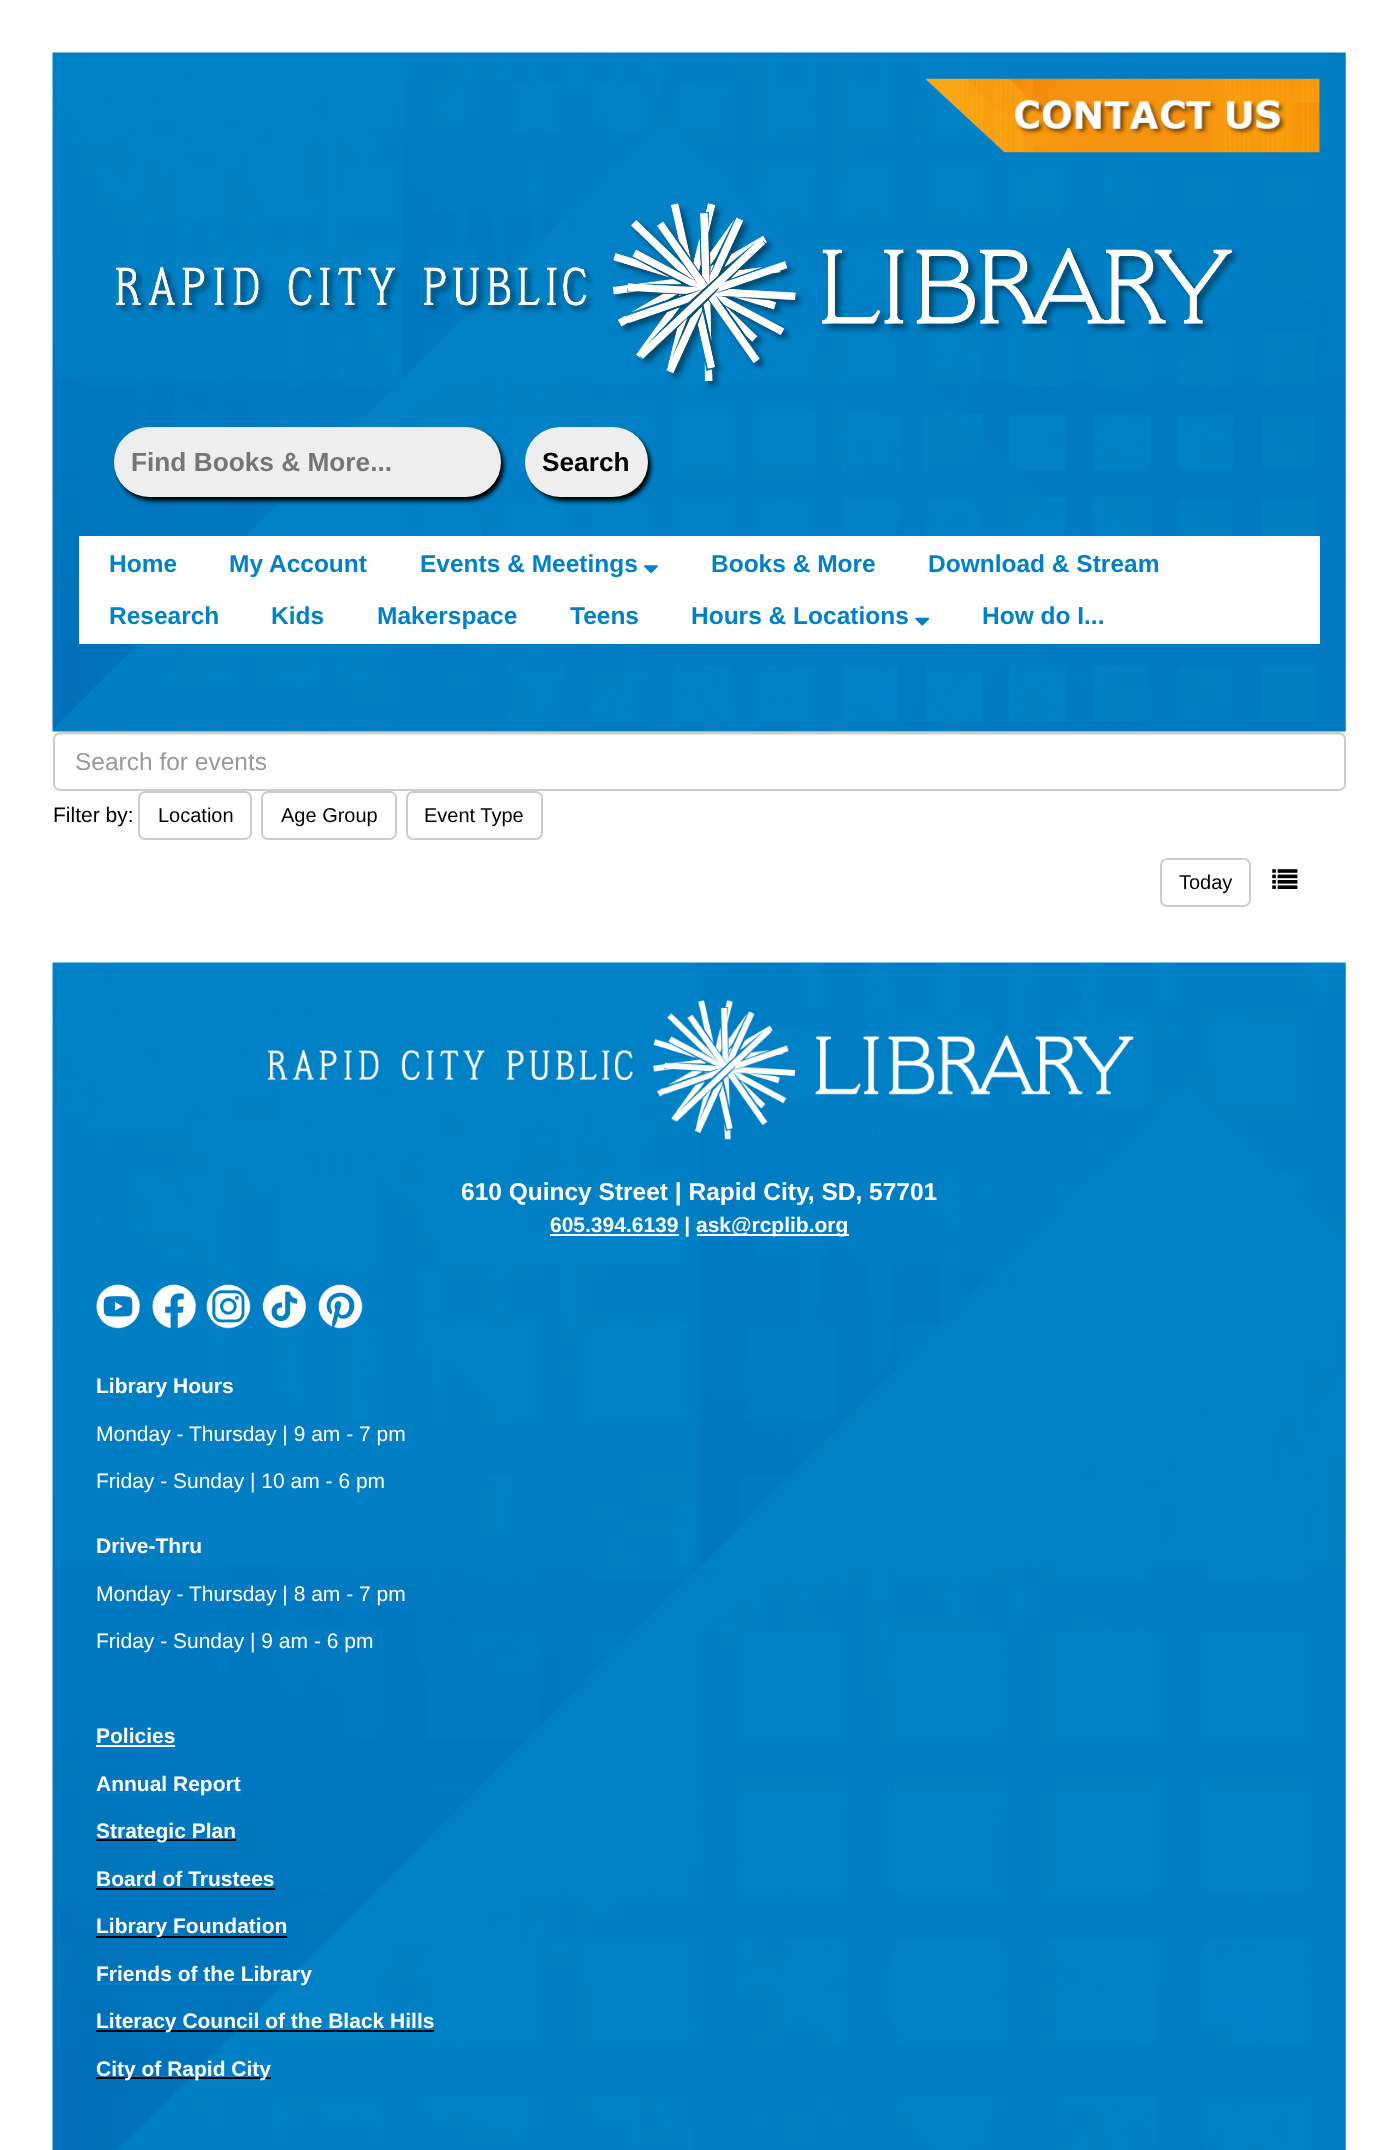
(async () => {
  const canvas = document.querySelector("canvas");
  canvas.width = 1397;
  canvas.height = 2150;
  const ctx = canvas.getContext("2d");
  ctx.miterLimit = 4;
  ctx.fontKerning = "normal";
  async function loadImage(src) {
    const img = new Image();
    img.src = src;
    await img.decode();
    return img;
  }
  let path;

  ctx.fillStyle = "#ffffff";
  ctx.fillRect(0, 0, 1397, 2150);
  ctx.drawImage(await loadImage("img/1.png"), 52, 52, 1294, 680);
  ctx.drawImage(await loadImage("img/2.png"), 925, 78, 395, 75);
  ctx.drawImage(await loadImage("img/3.png"), 116, 203, 1124, 187);
  ctx.fillStyle = "#000000";
  ctx.filter = "blur(2px)";
  ctx.beginPath();
  ctx.roundRect(117, 431, 387, 70, 35);
  ctx.fill();
  ctx.filter = "none";
  ctx.fillStyle = "#eeeeee";
  ctx.beginPath();
  ctx.roundRect(114, 427, 387, 70, 35);
  ctx.fill();
  ctx.fillStyle = "#000000";
  ctx.filter = "blur(2px)";
  ctx.beginPath();
  ctx.roundRect(529, 431, 122, 70, 35);
  ctx.fill();
  ctx.filter = "none";
  ctx.fillStyle = "#eeeeee";
  ctx.beginPath();
  ctx.roundRect(525, 427, 123, 70, 35);
  ctx.fill();
  ctx.fillStyle = "#ffffff";
  ctx.fillRect(79, 536, 1241, 108);
  ctx.drawImage(await loadImage("img/4.png"), 644, 565, 14, 8);
  ctx.drawImage(await loadImage("img/5.png"), 915, 617, 15, 9);
  ctx.fillStyle = "#ececec";
  path = new Path2D("M60 735H1339C1342 735 1344 737 1344 740V738C1344 735 1342 733 1339 733H59C56 733 54 735 54 738V740C54 737 57 735 60 735Z");
  ctx.fill(path);
  ctx.beginPath();
  ctx.roundRect(54, 733, 1291, 57, 6);
  ctx.strokeStyle = "#cccccc";
  ctx.lineWidth = 2;
  ctx.stroke();
  ctx.beginPath();
  ctx.roundRect(139, 792, 112, 47, 6);
  ctx.stroke();
  ctx.beginPath();
  ctx.roundRect(262, 792, 134, 47, 6);
  ctx.stroke();
  ctx.beginPath();
  ctx.roundRect(407, 792, 135, 47, 6);
  ctx.stroke();
  ctx.beginPath();
  ctx.roundRect(1161, 859, 89, 47, 6);
  ctx.stroke();
  ctx.drawImage(await loadImage("img/6.png"), 1272, 869, 26, 20);
  ctx.drawImage(await loadImage("img/7.png"), 52, 962, 1294, 1188);
  ctx.drawImage(await loadImage("img/8.png"), 267, 1000, 867, 140);
  ctx.fillStyle = "#ffffff";
  ctx.fillRect(550, 1234, 129, 2);
  ctx.fillRect(697, 1234, 152, 2);
  ctx.drawImage(await loadImage("img/9.png"), 96, 1284, 44, 45);
  ctx.drawImage(await loadImage("img/10.png"), 152, 1284, 44, 45);
  ctx.drawImage(await loadImage("img/11.png"), 206, 1284, 45, 45);
  ctx.drawImage(await loadImage("img/12.png"), 262, 1284, 45, 45);
  ctx.drawImage(await loadImage("img/13.png"), 318, 1284, 45, 45);
  for (const [x, y, w, h, color] of [
    [96, 1745, 79, 2, "#ffffff"],
    [96, 1792, 146, 2, "#0081c5"],
    [96, 1839, 140, 2, "#000000"],
    [96, 1888, 179, 2, "#000000"],
    [96, 1936, 191, 2, "#000000"],
    [96, 1983, 190, 2, "#0081c5"],
    [96, 2030, 338, 2, "#000000"],
    [96, 2077, 175, 2, "#000000"],
  ]) {
    ctx.fillStyle = color;
    ctx.fillRect(x, y, w, h);
  }
  ctx.font = "bold 26.25px Liberation Sans";
  ctx.fillStyle = "#757575";
  ctx.fillText("Find Books & More...", 131, 471);
  ctx.fillStyle = "#000000";
  ctx.fillText("Search", 542, 471);
  ctx.font = "bold 24.5px Liberation Sans";
  ctx.fillStyle = "#0081c5";
  for (const [text, x, y] of [
    ["Home", 109, 572],
    ["My Account", 229, 572],
    ["Events & Meetings", 420, 572],
    ["Books & More", 711, 572],
    ["Download & Stream", 928, 572],
    ["Research", 109, 624],
    ["Kids", 271, 624],
    ["Makerspace", 377, 624],
    ["Teens", 570, 624],
    ["Hours & Locations", 691, 624],
    ["How do I...", 982, 624],
  ]) {
    ctx.fillText(text, x, y);
  }
  ctx.font = "24.5px Liberation Sans";
  ctx.fillStyle = "#999999";
  ctx.fillText("Search for events", 75, 770);
  ctx.font = "21px Liberation Sans";
  ctx.fillStyle = "#000000";
  ctx.fillText("Filter by:", 53, 822);
  ctx.font = "20px Liberation Sans";
  for (const [text, x, y] of [
    ["Location", 158, 822],
    ["Age Group", 281, 822],
    ["Event Type", 424, 822],
    ["Today", 1179, 889],
  ]) {
    ctx.fillText(text, x, y);
  }
  ctx.font = "bold 24.5px Liberation Sans";
  ctx.fillStyle = "#ffffff";
  ctx.fillText("610 Quincy Street | Rapid City, SD, 57701", 461, 1200);
  ctx.font = "bold 21px Liberation Sans";
  for (const [text, x, y] of [
    ["605.394.6139 |", 550, 1232],
    ["ask@rcplib.org", 696, 1232],
    ["Library Hours", 96, 1393],
  ]) {
    ctx.fillText(text, x, y);
  }
  ctx.font = "21px Liberation Sans";
  ctx.fillText("Monday - Thursday | 9 am - 7 pm", 96, 1441);
  ctx.fillText("Friday - Sunday | 10 am - 6 pm", 96, 1488);
  ctx.font = "bold 21px Liberation Sans";
  ctx.fillText("Drive-Thru", 96, 1553);
  ctx.font = "21px Liberation Sans";
  ctx.fillText("Monday - Thursday | 8 am - 7 pm", 96, 1601);
  ctx.fillText("Friday - Sunday | 9 am - 6 pm", 96, 1648);
  ctx.font = "bold 21px Liberation Sans";
  for (const [text, x, y] of [
    ["Policies", 96, 1743],
    ["Annual Report", 96, 1791],
    ["Strategic Plan", 96, 1838],
    ["Board of Trustees", 96, 1886],
    ["Library Foundation", 96, 1933],
    ["Friends of the Library", 96, 1981],
    ["Literacy Council of the Black Hills", 96, 2028],
    ["City of Rapid City", 96, 2076],
  ]) {
    ctx.fillText(text, x, y);
  }
})();
